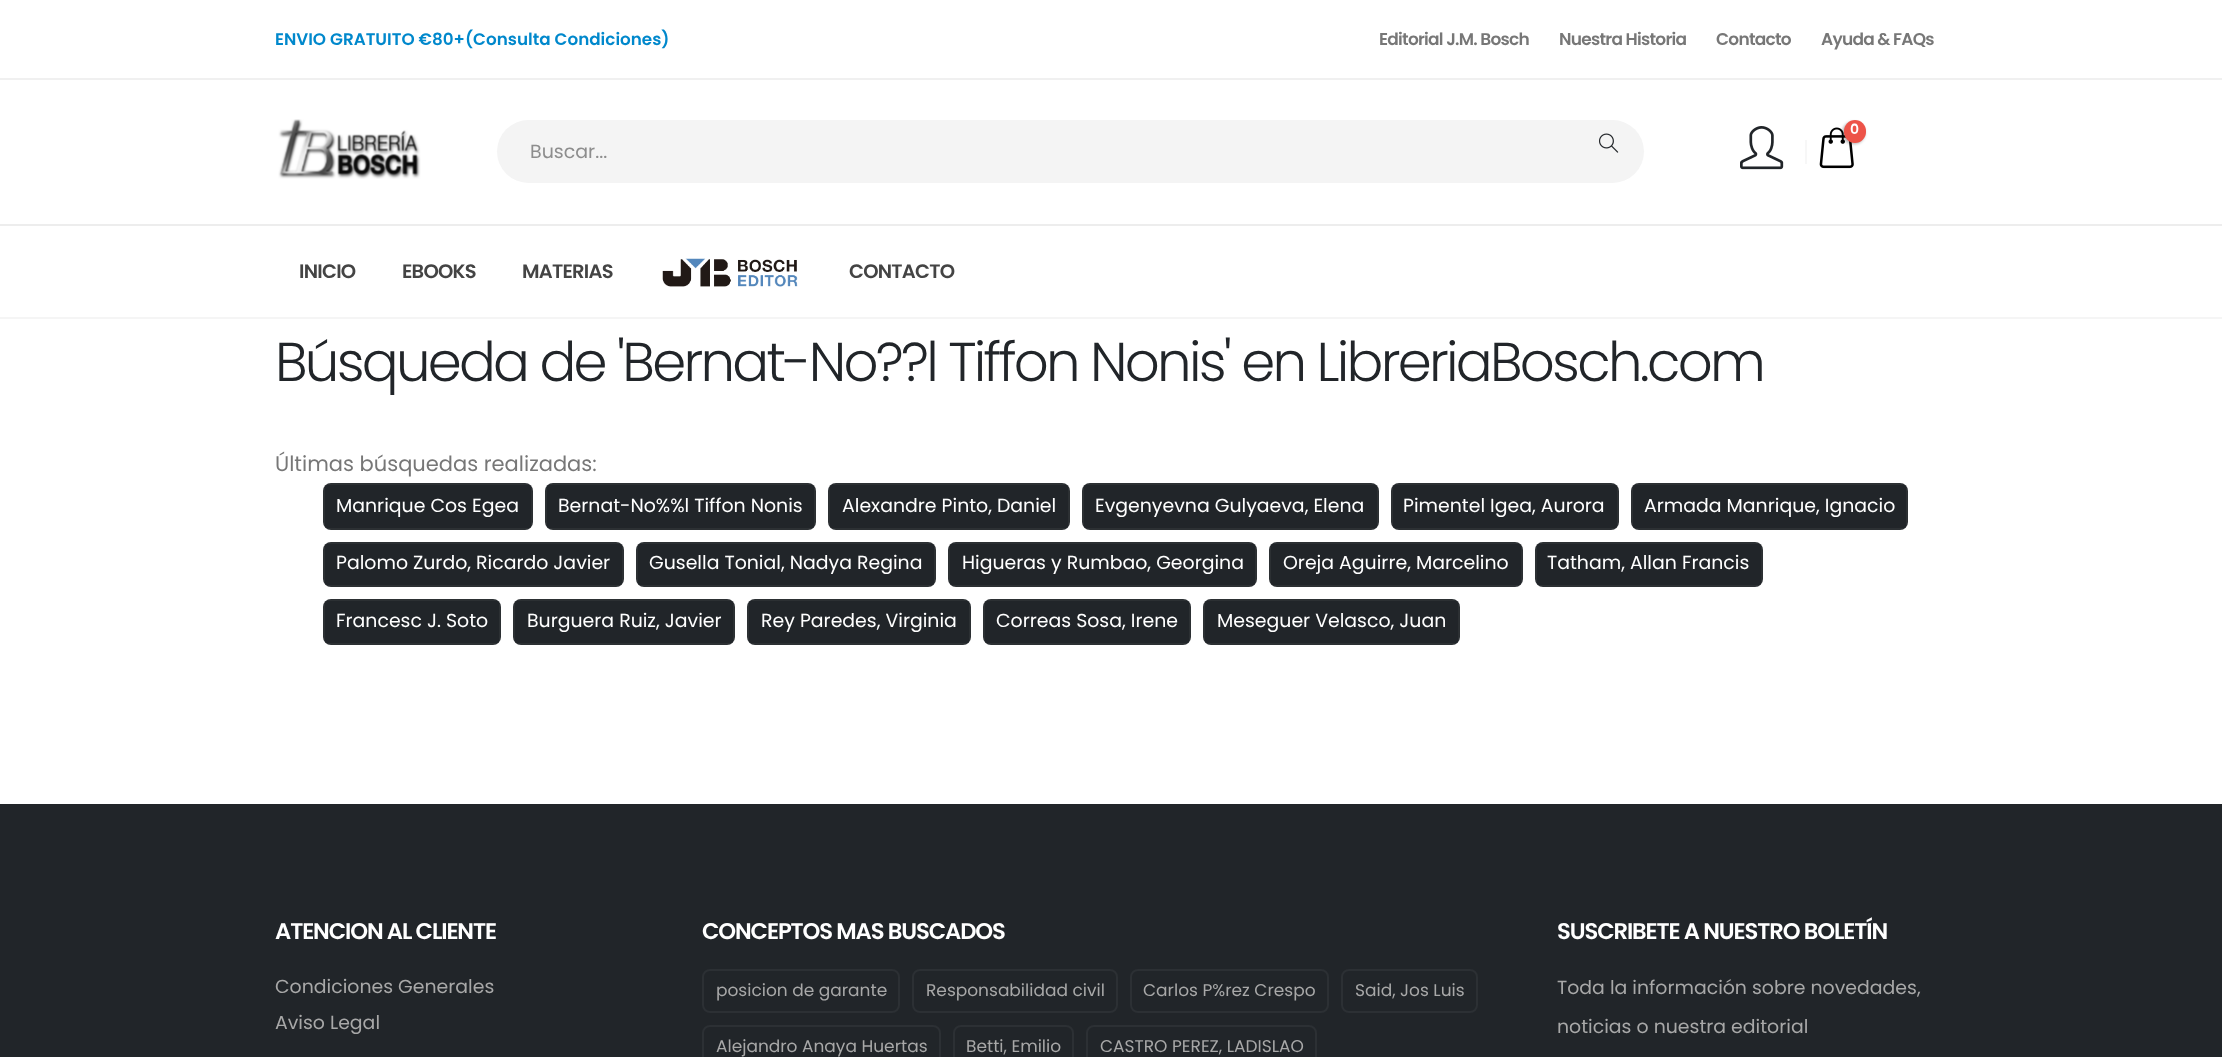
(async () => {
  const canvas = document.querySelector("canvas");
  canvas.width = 2222;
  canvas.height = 1057;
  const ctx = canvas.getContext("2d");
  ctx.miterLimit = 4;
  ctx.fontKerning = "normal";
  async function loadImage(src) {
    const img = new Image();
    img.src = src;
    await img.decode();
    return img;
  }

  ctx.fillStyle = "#ffffff";
  ctx.fillRect(0, 0, 2222, 1057);
  ctx.fillStyle = "#f5f5f5";
  ctx.fillRect(0, 317, 2222, 2);
  ctx.fillStyle = "#f0f0f0";
  ctx.fillRect(0, 78, 2222, 2);
  ctx.drawImage(await loadImage("img/1.png"), 278, 119, 143, 60);
  ctx.drawImage(await loadImage("img/2.png"), 1740, 126, 44, 44);
  ctx.drawImage(await loadImage("img/3.png"), 1819, 127, 35, 42);
  ctx.fillStyle = "rgba(0, 0, 0, 0.3)";
  ctx.filter = "blur(1.5px)";
  ctx.beginPath();
  ctx.roundRect(1842, 122, 23, 22, 11);
  ctx.fill();
  ctx.filter = "none";
  ctx.fillStyle = "#ed5348";
  ctx.beginPath();
  ctx.roundRect(1844, 120, 22, 23, 11);
  ctx.fill();
  ctx.fillStyle = "#f7f7f7";
  ctx.fillRect(1805, 140, 2, 24);
  ctx.fillStyle = "#f4f4f4";
  ctx.beginPath();
  ctx.roundRect(1580, 120, 64, 63, [0, 31.5, 31.5, 0]);
  ctx.fill();
  ctx.beginPath();
  ctx.roundRect(497, 120, 1084, 63, [31.5, 0, 0, 31.5]);
  ctx.fill();
  ctx.drawImage(await loadImage("img/4.png"), 1599, 133, 20, 20);
  ctx.fillStyle = "#ededed";
  ctx.fillRect(0, 224, 2222, 2);
  ctx.drawImage(await loadImage("img/5.png"), 662, 258, 136, 29);
  ctx.fillStyle = "#212529";
  ctx.beginPath();
  ctx.roundRect(323, 483, 210, 47, 8);
  ctx.fill();
  ctx.strokeStyle = "rgba(255, 255, 255, 0.05)";
  ctx.lineWidth = 2;
  ctx.strokeRect(324, 484, 208, 45);
  ctx.beginPath();
  ctx.roundRect(545, 483, 271, 47, 8);
  ctx.fill();
  ctx.strokeRect(546, 484, 269, 45);
  ctx.beginPath();
  ctx.roundRect(828, 483, 242, 47, 8);
  ctx.fill();
  ctx.strokeRect(829, 484, 240, 45);
  ctx.beginPath();
  ctx.roundRect(1082, 483, 297, 47, 8);
  ctx.fill();
  ctx.strokeRect(1083, 484, 295, 45);
  ctx.beginPath();
  ctx.roundRect(1391, 483, 228, 47, 8);
  ctx.fill();
  ctx.strokeRect(1392, 484, 226, 45);
  ctx.beginPath();
  ctx.roundRect(1631, 483, 277, 47, 8);
  ctx.fill();
  ctx.strokeRect(1632, 484, 275, 45);
  ctx.beginPath();
  ctx.roundRect(323, 542, 301, 45, 8);
  ctx.fill();
  ctx.strokeRect(324, 543, 299, 43);
  ctx.beginPath();
  ctx.roundRect(636, 542, 300, 45, 8);
  ctx.fill();
  ctx.strokeRect(637, 543, 298, 43);
  ctx.beginPath();
  ctx.roundRect(948, 542, 309, 45, 8);
  ctx.fill();
  ctx.strokeRect(949, 543, 307, 43);
  ctx.beginPath();
  ctx.roundRect(1269, 542, 254, 45, 8);
  ctx.fill();
  ctx.strokeRect(1270, 543, 252, 43);
  ctx.beginPath();
  ctx.roundRect(1535, 542, 228, 45, 8);
  ctx.fill();
  ctx.strokeRect(1536, 543, 226, 43);
  ctx.beginPath();
  ctx.roundRect(323, 599, 178, 46, 8);
  ctx.fill();
  ctx.strokeRect(324, 600, 176, 44);
  ctx.beginPath();
  ctx.roundRect(513, 599, 222, 46, 8);
  ctx.fill();
  ctx.strokeRect(514, 600, 220, 44);
  ctx.beginPath();
  ctx.roundRect(747, 599, 224, 46, 8);
  ctx.fill();
  ctx.strokeRect(748, 600, 222, 44);
  ctx.beginPath();
  ctx.roundRect(983, 599, 208, 46, 8);
  ctx.fill();
  ctx.strokeRect(984, 600, 206, 44);
  ctx.beginPath();
  ctx.roundRect(1203, 599, 257, 46, 8);
  ctx.fill();
  ctx.strokeRect(1204, 600, 255, 44);
  ctx.fillRect(0, 804, 2222, 253);
  ctx.beginPath();
  ctx.roundRect(703, 970, 196, 42, 7);
  ctx.strokeStyle = "#2c3034";
  ctx.stroke();
  ctx.beginPath();
  ctx.roundRect(913, 970, 204, 42, 7);
  ctx.stroke();
  ctx.beginPath();
  ctx.roundRect(1131, 970, 197, 42, 7);
  ctx.stroke();
  ctx.beginPath();
  ctx.roundRect(1342, 970, 135, 42, 7);
  ctx.stroke();
  ctx.beginPath();
  ctx.roundRect(703, 1026, 237, 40, 7);
  ctx.stroke();
  ctx.beginPath();
  ctx.roundRect(954, 1026, 119, 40, 7);
  ctx.stroke();
  ctx.beginPath();
  ctx.roundRect(1087, 1026, 229, 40, 7);
  ctx.stroke();
  ctx.font = "600 16.8px Poppins";
  ctx.fillStyle = "#0088cc";
  ctx.fillText("ENVIO GRATUITO €80+(Consulta Condiciones)", 275, 45);
  ctx.letterSpacing = "-0.75px";
  ctx.font = "600 17px Poppins";
  ctx.fillStyle = "#777777";
  for (const [text, x, y] of [
    ["Editorial J.M. Bosch", 1379, 45],
    ["Nuestra Historia", 1559, 45],
    ["Contacto", 1716, 45],
    ["Ayuda & FAQs", 1821, 45],
  ]) {
    ctx.fillText(text, x, y);
  }
  ctx.letterSpacing = "0px";
  ctx.font = "600 14px Poppins";
  ctx.fillStyle = "#ffffff";
  ctx.fillText("0", 1850, 134);
  ctx.font = "19px Poppins";
  ctx.fillStyle = "#8d8d8d";
  ctx.fillText("Buscar...", 530, 158);
  ctx.letterSpacing = "-0.75px";
  ctx.font = "600 19.5px Poppins";
  ctx.fillStyle = "#444444";
  for (const [text, x, y] of [
    ["INICIO", 299, 278],
    ["EBOOKS", 402, 278],
    ["MATERIAS", 522, 278],
    ["CONTACTO", 849, 278],
  ]) {
    ctx.fillText(text, x, y);
  }
  ctx.letterSpacing = "-2.73px";
  ctx.font = "300 54.6px Poppins";
  ctx.fillStyle = "#212529";
  ctx.fillText("Búsqueda de 'Bernat-No??l Tiffon Nonis' en LibreriaBosch.com", 275, 381);
  ctx.letterSpacing = "0px";
  ctx.font = "21px Poppins";
  ctx.fillStyle = "#777777";
  ctx.fillText("Últimas búsquedas realizadas:", 275, 471);
  ctx.font = "18.9px Poppins";
  ctx.fillStyle = "#ffffff";
  for (const [text, x, y] of [
    ["Manrique Cos Egea", 336, 512],
    ["Bernat-No%%l Tiffon Nonis", 558, 512],
    ["Alexandre Pinto, Daniel", 842, 512],
    ["Evgenyevna Gulyaeva, Elena", 1095, 512],
    ["Pimentel Igea, Aurora", 1403, 512],
    ["Armada Manrique, Ignacio", 1644, 512],
    ["Palomo Zurdo, Ricardo Javier", 336, 569],
    ["Gusella Tonial, Nadya Regina", 649, 569],
    ["Higueras y Rumbao, Georgina", 962, 569],
    ["Oreja Aguirre, Marcelino", 1283, 569],
    ["Tatham, Allan Francis", 1547, 569],
    ["Francesc J. Soto", 336, 627],
    ["Burguera Ruiz, Javier", 527, 627],
    ["Rey Paredes, Virginia", 761, 627],
    ["Correas Sosa, Irene", 996, 627],
    ["Meseguer Velasco, Juan", 1217, 627],
  ]) {
    ctx.fillText(text, x, y);
  }
  ctx.letterSpacing = "-1.1px";
  ctx.font = "600 22.7px Poppins";
  ctx.fillText("ATENCION AL CLIENTE", 275, 939);
  ctx.letterSpacing = "0px";
  ctx.font = "18.9px Poppins";
  ctx.fillStyle = "#a8a8a8";
  ctx.fillText("Condiciones Generales", 275, 993);
  ctx.fillText("Aviso Legal", 275, 1029);
  ctx.letterSpacing = "-1.1px";
  ctx.font = "600 22.7px Poppins";
  ctx.fillStyle = "#ffffff";
  ctx.fillText("CONCEPTOS MAS BUSCADOS", 702, 939);
  ctx.letterSpacing = "0px";
  ctx.font = "17px Poppins";
  ctx.fillStyle = "#a8a8a8";
  for (const [text, x, y] of [
    ["posicion de garante", 716, 996],
    ["Responsabilidad civil", 926, 996],
    ["Carlos P%rez Crespo", 1143, 996],
    ["Said, Jos Luis", 1355, 996],
    ["Alejandro Anaya Huertas", 716, 1052],
    ["Betti, Emilio", 966, 1052],
    ["CASTRO PEREZ, LADISLAO", 1100, 1052],
  ]) {
    ctx.fillText(text, x, y);
  }
  ctx.letterSpacing = "-1.1px";
  ctx.font = "600 22.7px Poppins";
  ctx.fillStyle = "#ffffff";
  ctx.fillText("SUSCRIBETE A NUESTRO BOLETÍN", 1557, 939);
  ctx.letterSpacing = "0px";
  ctx.font = "18.9px Poppins";
  ctx.fillStyle = "#a8a8a8";
  ctx.fillText("Toda la información sobre novedades,", 1557, 994);
  ctx.fillText("noticias o nuestra editorial", 1557, 1033);
})();
